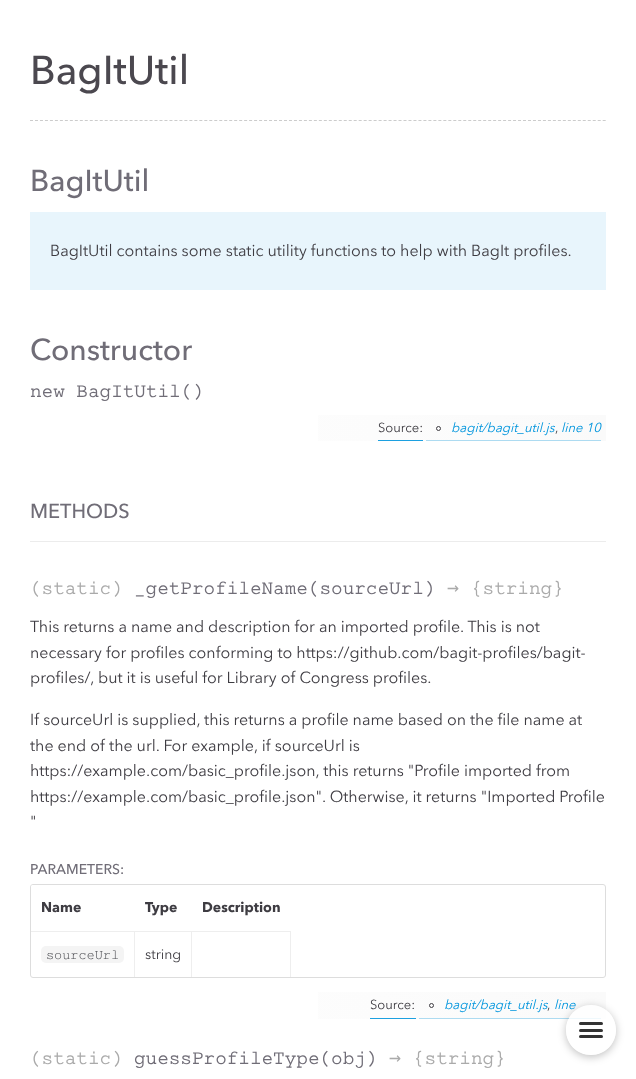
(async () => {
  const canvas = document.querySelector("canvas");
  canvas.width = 636;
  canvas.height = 1079;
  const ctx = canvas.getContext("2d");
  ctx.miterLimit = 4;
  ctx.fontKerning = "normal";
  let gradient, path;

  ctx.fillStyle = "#ffffff";
  ctx.fillRect(0, 0, 636, 1079);
  path = new Path2D("M30 120.5H606");
  ctx.strokeStyle = "#cccccc";
  ctx.setLineDash([3, 1.98]);
  ctx.stroke(path);
  ctx.fillStyle = "#e8f5fc";
  ctx.fillRect(30, 212, 576, 78);
  gradient = ctx.createLinearGradient(30, 428, 606, 428);
  gradient.addColorStop(0, "#ffffff");
  gradient.addColorStop(1, "#fafafa");
  ctx.fillStyle = gradient;
  ctx.fillRect(318, 415, 288, 26);
  ctx.fillStyle = "#1ca0e0";
  ctx.fillRect(378, 440, 45, 1);
  ctx.fillStyle = "#addbf1";
  ctx.fillRect(426, 440, 175, 1);
  ctx.beginPath();
  ctx.arc(438.5, 428.5, 2, 0, Math.PI * 2);
  ctx.strokeStyle = "#3e3c42";
  ctx.setLineDash([]);
  ctx.stroke();
  ctx.fillStyle = "#ececec";
  ctx.fillRect(30, 541, 576, 1);
  ctx.beginPath();
  ctx.roundRect(30.5, 884.5, 575, 93, 2.5);
  ctx.strokeStyle = "#dddddd";
  ctx.stroke();
  ctx.fillStyle = "#ffffff";
  ctx.beginPath();
  ctx.roundRect(31, 885, 260, 46, [2, 0, 0, 0]);
  ctx.fill();
  ctx.fillStyle = "#eeeeee";
  ctx.fillRect(31, 931, 260, 1);
  ctx.fillRect(134, 931, 1, 46);
  ctx.fillStyle = "#f4f4f4";
  ctx.beginPath();
  ctx.roundRect(41, 946, 83, 17, 5);
  ctx.fill();
  ctx.fillStyle = "#eeeeee";
  ctx.fillRect(191, 931, 1, 46);
  ctx.fillRect(290, 931, 1, 46);
  gradient = ctx.createLinearGradient(30, 1006, 606, 1006);
  gradient.addColorStop(0, "#ffffff");
  gradient.addColorStop(1, "#fafafa");
  ctx.fillStyle = gradient;
  ctx.fillRect(318, 992, 288, 27);
  ctx.fillStyle = "#1ca0e0";
  ctx.fillRect(370, 1018, 46, 1);
  ctx.fillStyle = "#addbf1";
  ctx.fillRect(419, 1018, 182, 1);
  ctx.beginPath();
  ctx.arc(431.5, 1005.5, 2, 0, Math.PI * 2);
  ctx.strokeStyle = "#3e3c42";
  ctx.stroke();
  ctx.save();
  path = new Path2D("M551 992H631V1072H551ZM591 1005C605 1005 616 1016 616 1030C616 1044 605 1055 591 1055C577 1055 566 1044 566 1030C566 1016 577 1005 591 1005Z");
  ctx.clip(path, "evenodd");
  ctx.fillStyle = "rgba(0, 0, 0, 0.25)";
  ctx.filter = "blur(4.5px)";
  ctx.beginPath();
  ctx.roundRect(566, 1007, 50, 50, 25);
  ctx.fill();
  ctx.filter = "none";
  ctx.restore();
  ctx.font = "500 40px Avenir Next";
  ctx.fillStyle = "#4b484f";
  ctx.fillText("BagItUtil", 30, 84);
  ctx.font = "500 30px Avenir Next";
  ctx.fillStyle = "#706d77";
  ctx.fillText("BagItUtil", 30, 191);
  ctx.font = "16px Avenir Next";
  ctx.fillStyle = "#3e3c42";
  ctx.fillText("BagItUtil contains some static utility functions to help with BagIt profiles.", 50, 256);
  ctx.font = "500 30px Avenir Next";
  ctx.fillStyle = "#706d77";
  ctx.fillText("Constructor", 30, 360);
  ctx.font = "500 20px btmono";
  ctx.fillText("new BagItUtil()", 30, 397);
  ctx.font = "13px Avenir Next";
  ctx.fillStyle = "#3e3c42";
  ctx.fillText("Source:", 378, 432);
  ctx.font = "italic 13px Avenir Next";
  ctx.fillStyle = "#0095dd";
  ctx.fillText("bagit/bagit_util.js", 451, 432);
  ctx.fillText("line 10", 561, 432);
  ctx.font = "13px Avenir Next";
  ctx.fillStyle = "#3e3c42";
  ctx.fillText(",", 555, 432);
  ctx.font = "500 20px Avenir Next";
  ctx.fillStyle = "#706d77";
  ctx.fillText("METHODS", 30, 518);
  ctx.font = "500 20px btmono";
  ctx.fillStyle = "#aaaaaa";
  ctx.fillText("(static)", 30, 594);
  ctx.fillStyle = "#706d77";
  ctx.fillText("_getProfileName(sourceUrl)", 134, 594);
  ctx.font = "20px DejaVu Sans Mono";
  ctx.fillStyle = "#aaaaaa";
  ctx.fillText("→", 447, 594);
  ctx.font = "500 20px btmono";
  ctx.fillText("{string}", 471, 594);
  ctx.font = "16px Avenir Next";
  ctx.fillStyle = "#3e3c42";
  for (const [text, x, y] of [
    ["This returns a name and description for an imported profile. This is not", 30, 632],
    ["necessary for profiles conforming to https://github.com/bagit-profiles/bagit-", 30, 658],
    ["profiles/, but it is useful for Library of Congress profiles.", 30, 683],
    ["If sourceUrl is supplied, this returns a profile name based on the file name at", 30, 725],
    ["the end of the url. For example, if sourceUrl is", 30, 751],
    ["https://example.com/basic_profile.json, this returns \"Profile imported from", 30, 776],
    ["https://example.com/basic_profile.json\". Otherwise, it returns \"Imported Profile", 30, 802],
    ["\"", 30, 827],
  ]) {
    ctx.fillText(text, x, y);
  }
  ctx.font = "500 14px Avenir Next";
  ctx.fillStyle = "#706d77";
  ctx.fillText("PARAMETERS:", 30, 874);
  ctx.font = "bold 14px Avenir Next";
  ctx.fillStyle = "#3e3c42";
  for (const [text, x, y] of [
    ["Name", 41, 912],
    ["Type", 145, 912],
    ["Description", 202, 912],
  ]) {
    ctx.fillText(text, x, y);
  }
  ctx.font = "14px btmono";
  ctx.fillStyle = "#4d4e53";
  ctx.fillText("sourceUrl", 46, 959);
  ctx.font = "14px Avenir Next";
  ctx.fillStyle = "#3e3c42";
  ctx.fillText("string", 145, 959);
  ctx.font = "13px Avenir Next";
  ctx.fillText("Source:", 370, 1009);
  ctx.font = "italic 13px Avenir Next";
  ctx.fillStyle = "#0095dd";
  ctx.fillText("bagit/bagit_util.js", 444, 1009);
  ctx.fillText("line", 554, 1009);
  ctx.font = "13px Avenir Next";
  ctx.fillStyle = "#3e3c42";
  ctx.fillText(",", 547, 1009);
  ctx.font = "500 20px btmono";
  ctx.fillStyle = "#aaaaaa";
  ctx.fillText("(static)", 30, 1064);
  ctx.fillStyle = "#706d77";
  ctx.fillText("guessProfileType(obj)", 134, 1064);
  ctx.font = "20px DejaVu Sans Mono";
  ctx.fillStyle = "#aaaaaa";
  ctx.fillText("→", 389, 1064);
  ctx.font = "500 20px btmono";
  ctx.fillText("{string}", 413, 1064);
  ctx.fillStyle = "rgba(255, 255, 255, 0.8)";
  ctx.beginPath();
  ctx.arc(591, 1030, 25, 0, Math.PI * 2);
  ctx.fill();
  ctx.fillStyle = "#333333";
  ctx.beginPath();
  ctx.roundRect(579, 1029, 24, 3, 1.5);
  ctx.fill();
  ctx.beginPath();
  ctx.roundRect(579, 1022, 24, 3, 1.5);
  ctx.fill();
  ctx.beginPath();
  ctx.roundRect(579, 1035, 24, 3, 1.5);
  ctx.fill();
})();
